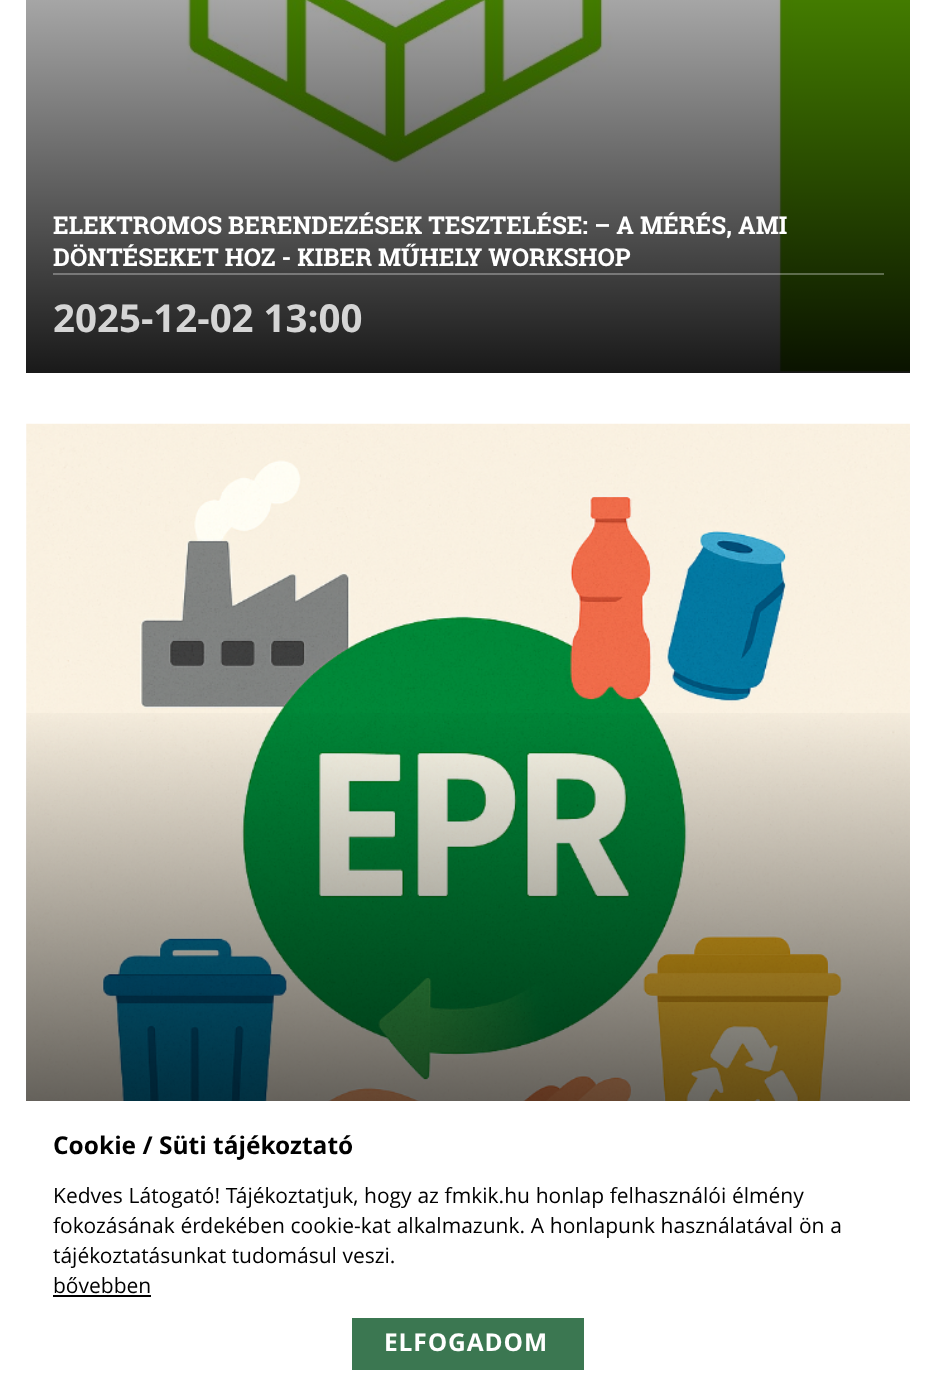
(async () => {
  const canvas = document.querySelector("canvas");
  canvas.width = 935;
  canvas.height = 1399;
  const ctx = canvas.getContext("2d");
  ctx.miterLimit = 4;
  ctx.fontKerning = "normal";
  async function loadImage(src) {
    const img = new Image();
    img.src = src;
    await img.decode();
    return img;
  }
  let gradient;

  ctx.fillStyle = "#ffffff";
  ctx.fillRect(0, 0, 935, 1399);
  ctx.drawImage(await loadImage("img/1.png"), 186, 0, 724, 372);
  gradient = ctx.createLinearGradient(468, -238, 468, 373);
  gradient.addColorStop(0, "rgba(0, 0, 0, 0)");
  gradient.addColorStop(1, "rgba(0, 0, 0, 0.9)");
  ctx.fillStyle = gradient;
  ctx.fillRect(26, 0, 884, 373);
  ctx.fillStyle = "rgba(255, 255, 255, 0.3)";
  ctx.fillRect(53, 273, 831, 2);
  ctx.drawImage(await loadImage("img/2.png"), 26, 423, 884, 678);
  gradient = ctx.createLinearGradient(468, 698, 468, 1309);
  gradient.addColorStop(0, "rgba(0, 0, 0, 0)");
  gradient.addColorStop(1, "rgba(0, 0, 0, 0.9)");
  ctx.fillStyle = gradient;
  ctx.fillRect(26, 713, 884, 388);
  ctx.fillStyle = "#000000";
  ctx.fillRect(53, 1295, 98, 2);
  ctx.fillStyle = "#3b7751";
  ctx.fillRect(352, 1318, 232, 52);
  ctx.font = "bold 24.5px Roboto Slab";
  ctx.fillStyle = "#ffffff";
  ctx.fillText("ELEKTROMOS BERENDEZÉSEK TESZTELÉSE: – A MÉRÉS, AMI", 53, 234);
  ctx.fillText("DÖNTÉSEKET HOZ - KIBER MŰHELY WORKSHOP", 53, 266);
  ctx.font = "bold 38.5px Open Sans";
  ctx.fillStyle = "#d5d5d5";
  ctx.fillText("2025-12-02 13:00", 53, 332);
  ctx.font = "bold 24.5px Open Sans";
  ctx.fillStyle = "#000000";
  ctx.fillText("Cookie / Süti tájékoztató", 53, 1154);
  ctx.wordSpacing = "0.25px";
  ctx.font = "21px Open Sans";
  ctx.fillText("Kedves Látogató! Tájékoztatjuk, hogy az fmkik.hu honlap felhasználói élmény", 53, 1203);
  ctx.fillText("fokozásának érdekében cookie-kat alkalmazunk. A honlapunk használatával ön a", 53, 1233);
  ctx.wordSpacing = "0px";
  ctx.fillText("tájékoztatásunkat tudomásul veszi.", 53, 1263);
  ctx.fillText("bővebben", 53, 1293);
  ctx.letterSpacing = "0.9px";
  ctx.font = "bold 24.5px Open Sans";
  ctx.fillStyle = "#ffffff";
  ctx.fillText("ELFOGADOM", 384, 1351);
})();
